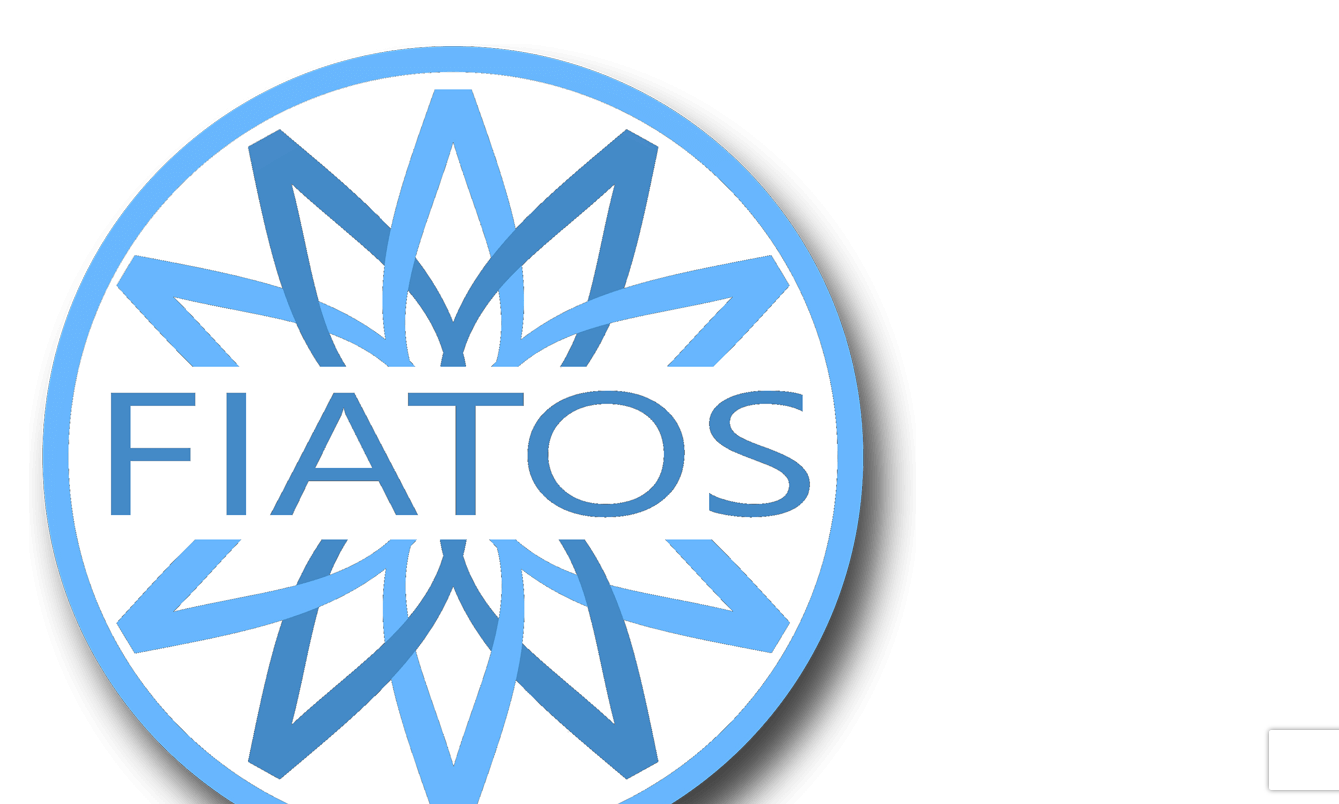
(async () => {
  const canvas = document.querySelector("canvas");
  canvas.width = 1339;
  canvas.height = 804;
  const ctx = canvas.getContext("2d");
  ctx.miterLimit = 4;
  ctx.fontKerning = "normal";
  async function loadImage(src) {
    const img = new Image();
    img.src = src;
    await img.decode();
    return img;
  }
  let path;

  ctx.fillStyle = "#ffffff";
  ctx.fillRect(0, 0, 1339, 804);
  ctx.drawImage(await loadImage("img/1.png"), 29, 44, 887, 760);
  ctx.save();
  path = new Path2D("M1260 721H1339V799H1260ZM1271 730H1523C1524 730 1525 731 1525 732V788C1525 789 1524 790 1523 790H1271C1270 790 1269 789 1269 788V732C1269 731 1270 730 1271 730Z");
  ctx.clip(path, "evenodd");
  ctx.fillStyle = "#808080";
  ctx.filter = "blur(2.5px)";
  ctx.beginPath();
  ctx.roundRect(1269, 730, 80, 60, 2);
  ctx.fill();
  ctx.filter = "none";
  ctx.restore();
})();
